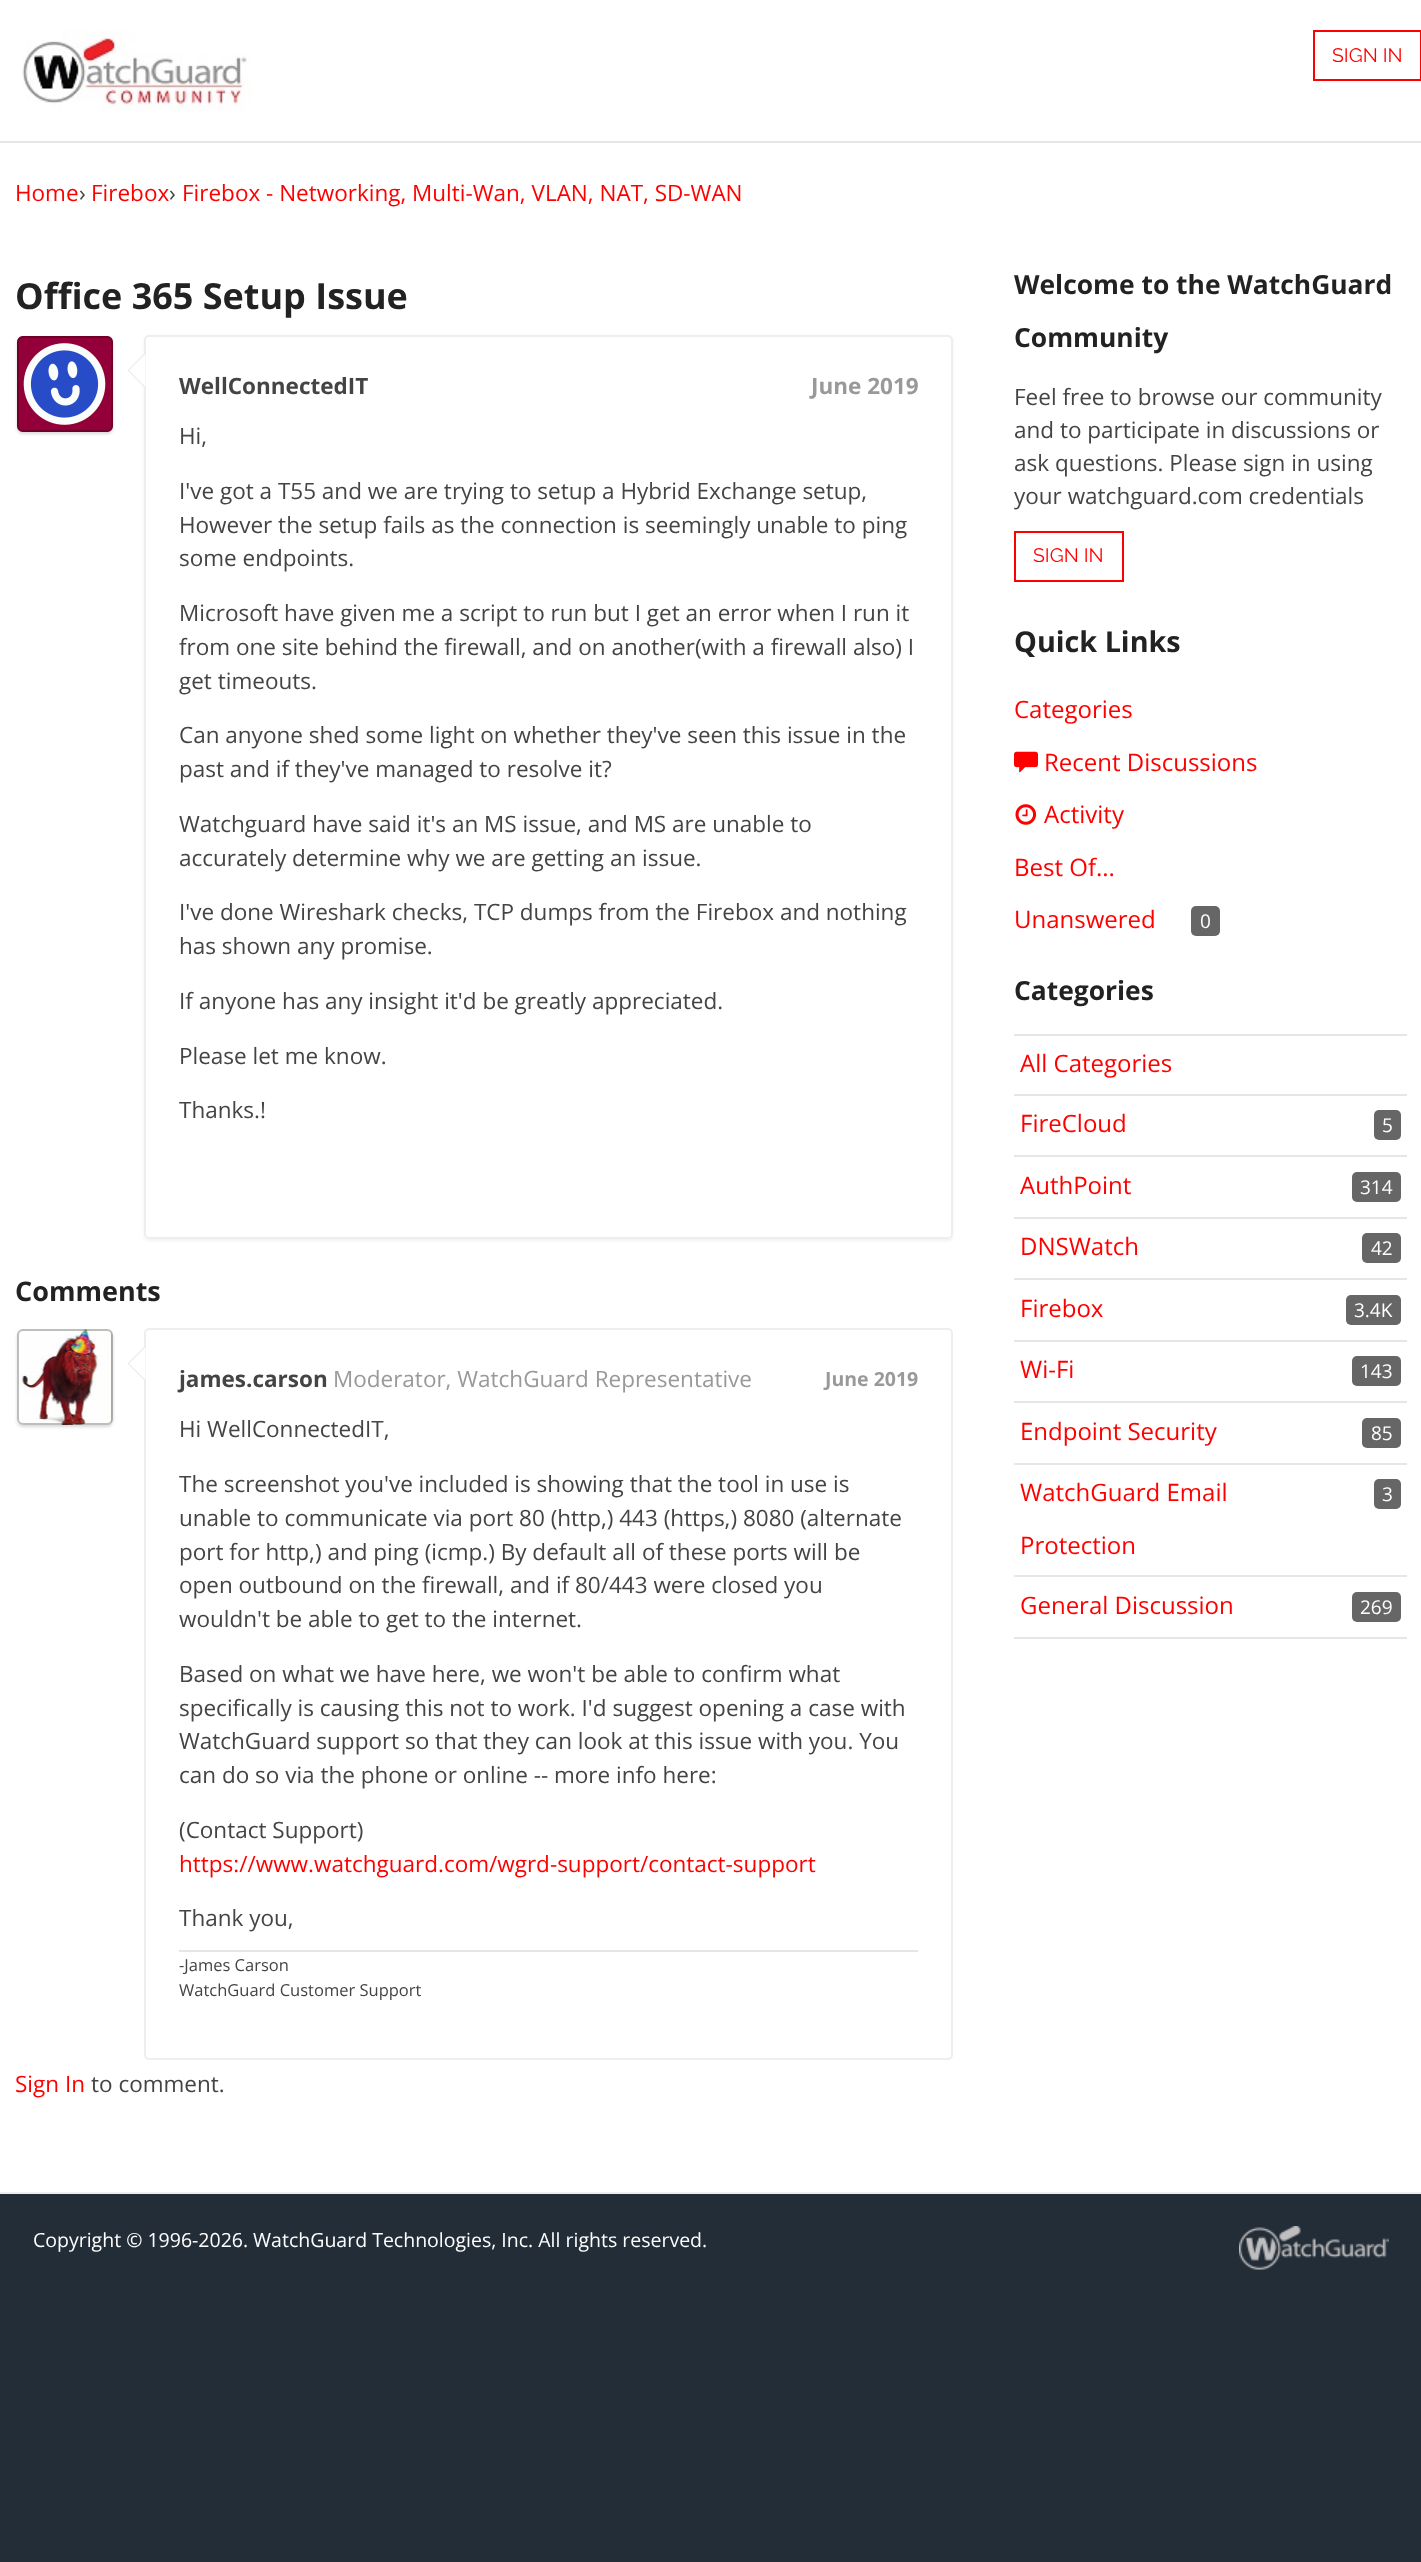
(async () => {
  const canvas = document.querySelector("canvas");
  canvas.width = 1421;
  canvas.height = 2562;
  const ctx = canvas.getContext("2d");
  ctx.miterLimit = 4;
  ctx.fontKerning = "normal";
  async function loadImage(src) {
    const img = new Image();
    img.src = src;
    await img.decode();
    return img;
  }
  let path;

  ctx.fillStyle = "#ffffff";
  ctx.fillRect(0, 0, 1421, 2562);
  ctx.fillStyle = "#e5e5e5";
  ctx.fillRect(0, 141, 1421, 2);
  ctx.drawImage(await loadImage("img/1.png"), 22, 30, 230, 81);
  ctx.strokeStyle = "#ff0000";
  ctx.lineWidth = 2;
  ctx.strokeRect(1314, 31, 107, 49);
  ctx.save();
  path = new Path2D("M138 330H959V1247H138ZM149 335H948C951 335 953 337 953 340V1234C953 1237 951 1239 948 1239H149C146 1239 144 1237 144 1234V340C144 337 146 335 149 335Z");
  ctx.clip(path, "evenodd");
  ctx.fillStyle = "rgba(0, 0, 0, 0.05)";
  ctx.filter = "blur(1.5px)";
  ctx.beginPath();
  ctx.roundRect(144, 336, 809, 905, 5);
  ctx.fill();
  ctx.filter = "none";
  ctx.restore();
  ctx.beginPath();
  ctx.roundRect(145, 336, 807, 902, 4);
  ctx.strokeStyle = "#eeeeee";
  ctx.stroke();
  ctx.fillStyle = "#eaeaea";
  path = new Path2D("M145.5 352.5V388.5L127.5 370.5Z");
  ctx.fill(path);
  ctx.fillStyle = "#ffffff";
  path = new Path2D("M145.5 354V387L129 370.5Z");
  ctx.fill(path);
  ctx.fillStyle = "rgba(0, 0, 0, 0.15)";
  ctx.filter = "blur(1.5px)";
  ctx.beginPath();
  ctx.roundRect(17, 338, 96, 96, 6);
  ctx.fill();
  ctx.filter = "none";
  ctx.drawImage(await loadImage("img/2.png"), 17, 336, 96, 96);
  ctx.beginPath();
  ctx.roundRect(18, 337, 94, 94, 5);
  ctx.strokeStyle = "rgba(0, 0, 0, 0.25)";
  ctx.stroke();
  ctx.beginPath();
  ctx.roundRect(145, 1329, 807, 730, 4);
  ctx.strokeStyle = "#eeeeee";
  ctx.stroke();
  ctx.fillStyle = "#eaeaea";
  path = new Path2D("M145.5 1345.5V1381.5L127.5 1363.5Z");
  ctx.fill(path);
  ctx.fillStyle = "#ffffff";
  path = new Path2D("M145.5 1347V1380L129 1363.5Z");
  ctx.fill(path);
  ctx.fillStyle = "rgba(0, 0, 0, 0.15)";
  ctx.filter = "blur(1.5px)";
  ctx.beginPath();
  ctx.roundRect(17, 1331, 96, 96, 6);
  ctx.fill();
  ctx.filter = "none";
  ctx.drawImage(await loadImage("img/3.png"), 17, 1329, 94, 96);
  ctx.beginPath();
  ctx.roundRect(18, 1330, 94, 94, 5);
  ctx.strokeStyle = "rgba(0, 0, 0, 0.25)";
  ctx.stroke();
  ctx.fillStyle = "#e6e6e6";
  ctx.fillRect(179, 1950, 739, 2);
  ctx.strokeStyle = "#ff0000";
  ctx.strokeRect(1015, 532, 108, 49);
  ctx.drawImage(await loadImage("img/4.png"), 1014, 751, 24, 22);
  ctx.drawImage(await loadImage("img/5.png"), 1015, 804, 22, 21);
  ctx.fillStyle = "#666666";
  ctx.beginPath();
  ctx.roundRect(1191, 906, 29, 30, 5);
  ctx.fill();
  for (const [x, y, w, h, color] of [
    [1014, 1034, 393, 2, "#e6e6e6"],
    [1014, 1094, 393, 2, "#e6e6e6"],
    [1014, 1155, 393, 2, "#e6e6e6"],
  ]) {
    ctx.fillStyle = color;
    ctx.fillRect(x, y, w, h);
  }
  ctx.fillStyle = "#666666";
  ctx.beginPath();
  ctx.roundRect(1374, 1110, 27, 30, 5);
  ctx.fill();
  ctx.fillStyle = "#e6e6e6";
  ctx.fillRect(1014, 1217, 393, 2);
  ctx.fillStyle = "#666666";
  ctx.beginPath();
  ctx.roundRect(1352, 1172, 49, 30, 5);
  ctx.fill();
  ctx.fillStyle = "#e6e6e6";
  ctx.fillRect(1014, 1278, 393, 2);
  ctx.fillStyle = "#666666";
  ctx.beginPath();
  ctx.roundRect(1362, 1233, 39, 30, 5);
  ctx.fill();
  ctx.fillStyle = "#e6e6e6";
  ctx.fillRect(1014, 1340, 393, 2);
  ctx.fillStyle = "#666666";
  ctx.beginPath();
  ctx.roundRect(1346, 1295, 55, 30, 5);
  ctx.fill();
  ctx.fillStyle = "#e6e6e6";
  ctx.fillRect(1014, 1401, 393, 2);
  ctx.fillStyle = "#666666";
  ctx.beginPath();
  ctx.roundRect(1352, 1356, 49, 30, 5);
  ctx.fill();
  ctx.fillStyle = "#e6e6e6";
  ctx.fillRect(1014, 1463, 393, 2);
  ctx.fillStyle = "#666666";
  ctx.beginPath();
  ctx.roundRect(1362, 1418, 39, 30, 5);
  ctx.fill();
  ctx.fillStyle = "#e6e6e6";
  ctx.fillRect(1014, 1575, 393, 2);
  ctx.fillStyle = "#666666";
  ctx.beginPath();
  ctx.roundRect(1374, 1479, 27, 30, 5);
  ctx.fill();
  ctx.fillStyle = "#e6e6e6";
  ctx.fillRect(1014, 1637, 393, 2);
  ctx.fillStyle = "#666666";
  ctx.beginPath();
  ctx.roundRect(1352, 1592, 49, 30, 5);
  ctx.fill();
  ctx.fillStyle = "#232d37";
  path = new Path2D("M-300 2192V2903H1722V2192H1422V2302H0V2192Z");
  ctx.fill(path);
  ctx.fillRect(0, 2194, 1421, 108);
  ctx.fillStyle = "#eeeeee";
  ctx.fillRect(0, 2192, 1421, 2);
  ctx.drawImage(await loadImage("img/6.png"), 1239, 2226, 150, 44);
  ctx.font = "100 19.5px Raleway";
  ctx.fillStyle = "#ff0000";
  ctx.fillText("SIGN IN", 1332, 62);
  ctx.font = "22.5px Open Sans";
  ctx.fillText("Home", 15, 201);
  ctx.fillStyle = "#444444";
  ctx.fillText("›", 79, 201);
  ctx.fillStyle = "#ff0000";
  ctx.fillText("Firebox", 91, 201);
  ctx.fillStyle = "#444444";
  ctx.fillText("›", 169, 201);
  ctx.fillStyle = "#ff0000";
  ctx.fillText("Firebox - Networking, Multi-Wan, VLAN, NAT, SD-WAN", 182, 201);
  ctx.font = "bold 36px Open Sans";
  ctx.fillStyle = "#222222";
  ctx.fillText("Office 365 Setup Issue", 15, 309);
  ctx.font = "bold 22.5px Open Sans";
  ctx.fillStyle = "#444444";
  ctx.fillText("WellConnectedIT", 179, 394);
  ctx.fillStyle = "#999999";
  ctx.fillText("June 2019", 811, 394);
  ctx.font = "22.5px Open Sans";
  ctx.fillStyle = "#444444";
  for (const [text, x, y] of [
    ["Hi,", 179, 444],
    ["I've got a T55 and we are trying to setup a Hybrid Exchange setup,", 179, 499],
    ["However the setup fails as the connection is seemingly unable to ping", 179, 533],
    ["some endpoints.", 179, 566],
    ["Microsoft have given me a script to run but I get an error when I run it", 179, 621],
    ["from one site behind the firewall, and on another(with a firewall also) I", 179, 655],
    ["get timeouts.", 179, 689],
    ["Can anyone shed some light on whether they've seen this issue in the", 179, 743],
    ["past and if they've managed to resolve it?", 179, 777],
    ["Watchguard have said it's an MS issue, and MS are unable to", 179, 832],
    ["accurately determine why we are getting an issue.", 179, 866],
    ["I've done Wireshark checks, TCP dumps from the Firebox and nothing", 179, 920],
    ["has shown any promise.", 179, 954],
    ["If anyone has any insight it'd be greatly appreciated.", 179, 1009],
    ["Please let me know.", 179, 1064],
    ["Thanks.!", 179, 1118],
  ]) {
    ctx.fillText(text, x, y);
  }
  ctx.font = "bold 27px Open Sans";
  ctx.fillStyle = "#222222";
  ctx.fillText("Comments", 15, 1301);
  ctx.font = "bold 22.5px Open Sans";
  ctx.fillStyle = "#444444";
  ctx.fillText("james.carson", 179, 1387);
  ctx.font = "22.5px Open Sans";
  ctx.fillStyle = "#999999";
  ctx.fillText("Moderator, WatchGuard Representative", 333, 1387);
  ctx.font = "bold 19.5px Open Sans";
  ctx.fillText("June 2019", 825, 1386);
  ctx.font = "22.5px Open Sans";
  ctx.fillStyle = "#444444";
  for (const [text, x, y] of [
    ["Hi WellConnectedIT,", 179, 1437],
    ["The screenshot you've included is showing that the tool in use is", 179, 1492],
    ["unable to communicate via port 80 (http,) 443 (https,) 8080 (alternate", 179, 1526],
    ["port for http,) and ping (icmp.) By default all of these ports will be", 179, 1560],
    ["open outbound on the firewall, and if 80/443 were closed you", 179, 1593],
    ["wouldn't be able to get to the internet.", 179, 1627],
    ["Based on what we have here, we won't be able to confirm what", 179, 1682],
    ["specifically is causing this not to work. I'd suggest opening a case with", 179, 1716],
    ["WatchGuard support so that they can look at this issue with you. You", 179, 1749],
    ["can do so via the phone or online -- more info here:", 179, 1783],
    ["(Contact Support)", 179, 1838],
  ]) {
    ctx.fillText(text, x, y);
  }
  ctx.fillStyle = "#ff0000";
  ctx.fillText("https://www.watchguard.com/wgrd-support/contact-support", 179, 1872);
  ctx.fillStyle = "#444444";
  ctx.fillText("Thank you,", 179, 1926);
  ctx.font = "16.5px Open Sans";
  ctx.fillText("-James Carson", 179, 1971);
  ctx.fillText("WatchGuard Customer Support", 179, 1996);
  ctx.font = "22.5px Open Sans";
  ctx.fillStyle = "#ff0000";
  ctx.fillText("Sign In", 15, 2092);
  ctx.fillStyle = "#444444";
  ctx.fillText("to comment.", 91, 2092);
  ctx.font = "bold 26.4px Open Sans";
  ctx.fillStyle = "#222222";
  ctx.fillText("Welcome to the WatchGuard", 1014, 294);
  ctx.fillText("Community", 1014, 347);
  ctx.font = "22.5px Open Sans";
  ctx.fillStyle = "#444444";
  for (const [text, x, y] of [
    ["Feel free to browse our community", 1014, 405],
    ["and to participate in discussions or", 1014, 438],
    ["ask questions. Please sign in using", 1014, 471],
    ["your watchguard.com credentials", 1014, 504],
  ]) {
    ctx.fillText(text, x, y);
  }
  ctx.font = "100 19.5px Raleway";
  ctx.fillStyle = "#ff0000";
  ctx.fillText("SIGN IN", 1033, 562);
  ctx.font = "bold 28.75px Open Sans";
  ctx.fillStyle = "#222222";
  ctx.fillText("Quick Links", 1014, 652);
  ctx.font = "24px Open Sans";
  ctx.fillStyle = "#ff0000";
  for (const [text, x, y] of [
    ["Categories", 1014, 718],
    ["Recent Discussions", 1044, 771],
    ["Activity", 1044, 823],
    ["Best Of...", 1014, 876],
    ["Unanswered", 1014, 928],
  ]) {
    ctx.fillText(text, x, y);
  }
  ctx.font = "19px Open Sans";
  ctx.fillStyle = "#ffffff";
  ctx.fillText("0", 1200, 928);
  ctx.font = "bold 26.4px Open Sans";
  ctx.fillStyle = "#222222";
  ctx.fillText("Categories", 1014, 1000);
  ctx.font = "24px Open Sans";
  ctx.fillStyle = "#ff0000";
  ctx.fillText("All Categories", 1020, 1072);
  ctx.fillText("FireCloud", 1020, 1132);
  ctx.font = "19px Open Sans";
  ctx.fillStyle = "#ffffff";
  ctx.fillText("5", 1382, 1132);
  ctx.font = "24px Open Sans";
  ctx.fillStyle = "#ff0000";
  ctx.fillText("AuthPoint", 1020, 1194);
  ctx.font = "19px Open Sans";
  ctx.fillStyle = "#ffffff";
  ctx.fillText("314", 1360, 1194);
  ctx.font = "24px Open Sans";
  ctx.fillStyle = "#ff0000";
  ctx.fillText("DNSWatch", 1020, 1255);
  ctx.font = "19px Open Sans";
  ctx.fillStyle = "#ffffff";
  ctx.fillText("42", 1371, 1255);
  ctx.font = "24px Open Sans";
  ctx.fillStyle = "#ff0000";
  ctx.fillText("Firebox", 1020, 1317);
  ctx.font = "19px Open Sans";
  ctx.fillStyle = "#ffffff";
  ctx.fillText("3.4K", 1354, 1317);
  ctx.font = "24px Open Sans";
  ctx.fillStyle = "#ff0000";
  ctx.fillText("Wi-Fi", 1020, 1378);
  ctx.font = "19px Open Sans";
  ctx.fillStyle = "#ffffff";
  ctx.fillText("143", 1360, 1378);
  ctx.font = "24px Open Sans";
  ctx.fillStyle = "#ff0000";
  ctx.fillText("Endpoint Security", 1020, 1440);
  ctx.font = "19px Open Sans";
  ctx.fillStyle = "#ffffff";
  ctx.fillText("85", 1371, 1440);
  ctx.font = "24px Open Sans";
  ctx.fillStyle = "#ff0000";
  ctx.fillText("WatchGuard Email", 1020, 1501);
  ctx.font = "19px Open Sans";
  ctx.fillStyle = "#ffffff";
  ctx.fillText("3", 1382, 1501);
  ctx.font = "24px Open Sans";
  ctx.fillStyle = "#ff0000";
  ctx.fillText("Protection", 1020, 1554);
  ctx.fillText("General Discussion", 1020, 1614);
  ctx.font = "19px Open Sans";
  ctx.fillStyle = "#ffffff";
  ctx.fillText("269", 1360, 1614);
  ctx.font = "19.5px Open Sans";
  ctx.fillText("Copyright © 1996-2026. WatchGuard Technologies, Inc. All rights reserved.", 33, 2247);
})();
